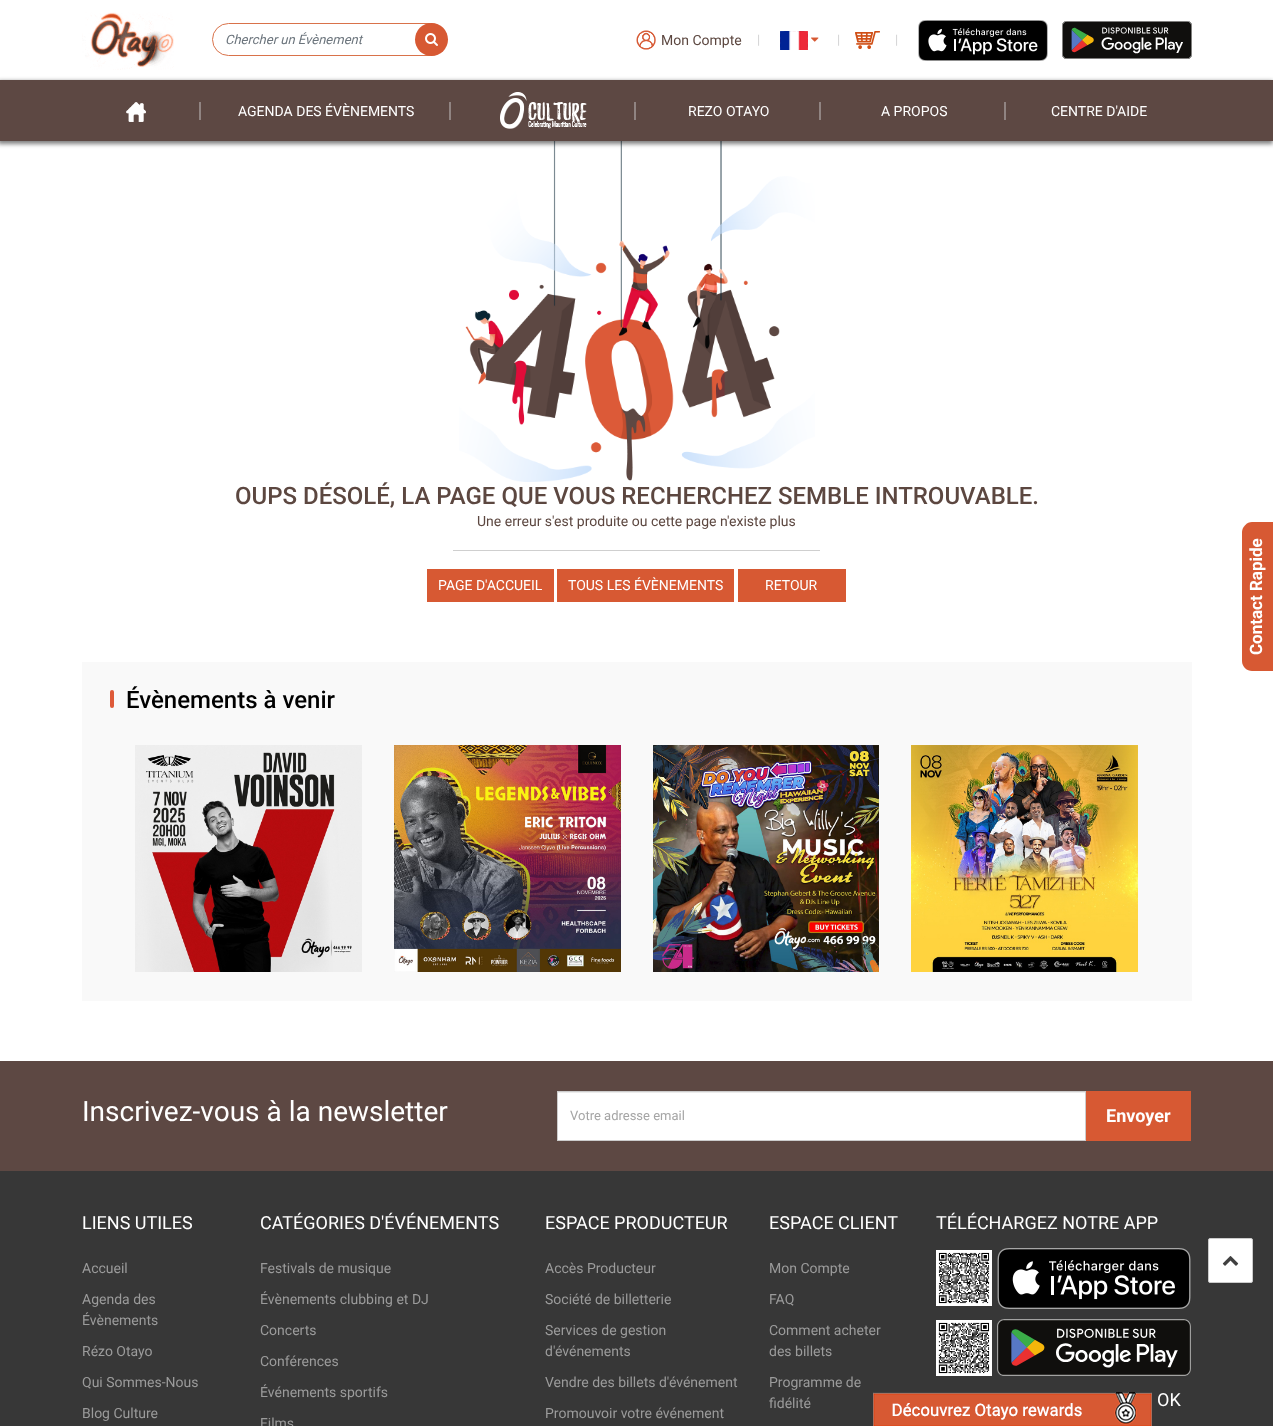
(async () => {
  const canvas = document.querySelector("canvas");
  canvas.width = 1273;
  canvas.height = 1426;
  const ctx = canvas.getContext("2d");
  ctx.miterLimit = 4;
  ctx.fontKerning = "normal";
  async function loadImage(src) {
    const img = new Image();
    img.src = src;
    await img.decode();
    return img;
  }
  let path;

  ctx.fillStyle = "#ffffff";
  ctx.fillRect(0, 0, 1273, 1426);
  ctx.drawImage(await loadImage("img/1.png"), 82, 12, 92, 58);
  ctx.beginPath();
  ctx.roundRect(212.5, 23.5, 234, 32, 16);
  ctx.strokeStyle = "#d9724a";
  ctx.stroke();
  ctx.fillStyle = "#d75933";
  ctx.beginPath();
  ctx.arc(431.5, 39.5, 16.5, 0, Math.PI * 2);
  ctx.fill();
  ctx.drawImage(await loadImage("img/2.png"), 425, 33, 13, 13);
  ctx.drawImage(await loadImage("img/3.png"), 636, 30, 20, 20);
  ctx.drawImage(await loadImage("img/4.png"), 780, 31, 28, 19);
  ctx.drawImage(await loadImage("img/5.png"), 811, 37, 8, 5);
  ctx.drawImage(await loadImage("img/6.png"), 855, 31, 25, 18);
  ctx.drawImage(await loadImage("img/7.png"), 918, 20, 130, 41);
  ctx.drawImage(await loadImage("img/8.png"), 1062, 21, 130, 38);
  ctx.drawImage(await loadImage("img/11.png"), 459, 141, 356, 341);
  ctx.fillStyle = "rgba(0, 0, 0, 0.5)";
  ctx.filter = "blur(2px)";
  ctx.beginPath();
  ctx.rect(-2, 81, 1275, 63);
  ctx.fill();
  ctx.filter = "none";
  ctx.fillStyle = "#5d4843";
  ctx.fillRect(0, 80, 1273, 61);
  ctx.drawImage(await loadImage("img/9.png"), 126, 102, 20, 20);
  ctx.fillStyle = "#908482";
  ctx.fillRect(199, 102, 2, 18);
  ctx.fillRect(449, 102, 2, 18);
  ctx.drawImage(await loadImage("img/10.png"), 500, 92, 87, 37);
  for (const [x, y, w, h, color] of [
    [634, 102, 2, 18, "#908482"],
    [819, 102, 2, 18, "#908482"],
    [1004, 102, 2, 18, "#908482"],
    [453, 550, 367, 1, "#cfcfcf"],
    [427, 569, 127, 33, "#d75933"],
    [557, 569, 177, 33, "#d75933"],
    [738, 569, 108, 33, "#d75933"],
    [82, 662, 1110, 339, "#f9f9f9"],
  ]) {
    ctx.fillStyle = color;
    ctx.fillRect(x, y, w, h);
  }
  ctx.fillStyle = "#de5a39";
  ctx.beginPath();
  ctx.roundRect(110, 690, 4, 18, 2);
  ctx.fill();
  ctx.drawImage(await loadImage("img/12.png"), 135, 745, 227, 227);
  ctx.drawImage(await loadImage("img/13.png"), 394, 745, 227, 227);
  ctx.drawImage(await loadImage("img/14.png"), 653, 745, 226, 227);
  ctx.drawImage(await loadImage("img/15.png"), 911, 745, 227, 227);
  ctx.fillStyle = "#373737";
  ctx.fillRect(0, 1171, 1273, 255);
  ctx.fillStyle = "#d75933";
  path = new Path2D("M1242 661V532C1242 527 1247 522 1252 522H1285C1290 522 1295 527 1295 532V661C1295 667 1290 671 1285 671H1252C1247 671 1242 667 1242 661Z");
  ctx.fill(path);
  ctx.drawImage(await loadImage("img/16.png"), 936, 1250, 56, 56);
  ctx.drawImage(await loadImage("img/17.png"), 997, 1248, 194, 61);
  ctx.drawImage(await loadImage("img/18.png"), 936, 1320, 56, 56);
  ctx.drawImage(await loadImage("img/19.png"), 997, 1319, 194, 57);
  ctx.fillStyle = "#ffffff";
  ctx.beginPath();
  ctx.roundRect(1208.5, 1238.5, 44, 44, 1.5);
  ctx.fill();
  ctx.strokeStyle = "#cbcbcb";
  ctx.stroke();
  ctx.drawImage(await loadImage("img/20.png"), 1222, 1256, 17, 10);
  for (const [x, y, w, h, color] of [
    [0, 1061, 1273, 110, "#5d4843"],
    [558, 1093, 527, 47, "#ffffff"],
    [558, 1092, 527, 1, "#ececec"],
  ]) {
    ctx.fillStyle = color;
    ctx.fillRect(x, y, w, h);
  }
  ctx.strokeStyle = "#cccccc";
  ctx.strokeRect(557.5, 1091.5, 528, 49);
  ctx.fillStyle = "#d75933";
  ctx.fillRect(1086, 1091, 105, 50);
  ctx.drawImage(await loadImage("img/21.png"), 873, 1392, 279, 34);
  ctx.font = "italic 13px Roboto";
  ctx.fillStyle = "#6c757d";
  ctx.fillText("Chercher un Évènement", 225, 44);
  ctx.font = "14px Roboto";
  ctx.fillStyle = "#5c4740";
  ctx.fillText("Mon Compte", 661, 45);
  ctx.font = "13px Roboto";
  ctx.fillStyle = "#d3d3d4";
  for (const [text, x, y] of [
    ["|", 757, 44],
    ["|", 837, 44],
    ["|", 895, 44],
  ]) {
    ctx.fillText(text, x, y);
  }
  ctx.font = "14px Roboto";
  ctx.fillStyle = "#ffffff";
  for (const [text, x, y] of [
    ["AGENDA DES ÉVÈNEMENTS", 238, 116],
    ["REZO OTAYO", 688, 116],
    ["A PROPOS", 881, 116],
    ["CENTRE D'AIDE", 1051, 116],
  ]) {
    ctx.fillText(text, x, y);
  }
  ctx.font = "500 24px Roboto";
  ctx.fillStyle = "#5c4740";
  ctx.fillText("OUPS DÉSOLÉ, LA PAGE QUE VOUS RECHERCHEZ SEMBLE INTROUVABLE.", 235, 504);
  ctx.font = "14px Roboto";
  ctx.fillText("Une erreur s'est produite ou cette page n'existe plus", 477, 526);
  ctx.fillStyle = "#ffffff";
  for (const [text, x, y] of [
    ["PAGE D'ACCUEIL", 438, 590],
    ["TOUS LES ÉVÈNEMENTS", 568, 590],
    ["RETOUR", 765, 590],
  ]) {
    ctx.fillText(text, x, y);
  }
  ctx.font = "500 24px Roboto";
  ctx.fillStyle = "#000000";
  ctx.fillText("Évènements à venir", 126, 708);
  ctx.font = "bold 17px Roboto";
  ctx.fillStyle = "#ffffff";
  ctx.save();
  ctx.translate(1262, 655);
  ctx.rotate(-90 * Math.PI / 180);
  ctx.fillText("Contact Rapide", 0, 0);
  ctx.restore();
  ctx.font = "18px Roboto";
  ctx.fillText("LIENS UTILES", 82, 1229);
  ctx.font = "14px Roboto";
  ctx.fillStyle = "#9b9b9b";
  for (const [text, x, y] of [
    ["Accueil", 82, 1273],
    ["Agenda des", 82, 1304],
    ["Évènements", 82, 1325],
    ["Rézo Otayo", 82, 1356],
    ["Qui Sommes-Nous", 82, 1387],
    ["Blog Culture", 82, 1418],
  ]) {
    ctx.fillText(text, x, y);
  }
  ctx.font = "18px Roboto";
  ctx.fillStyle = "#ffffff";
  ctx.fillText("CATÉGORIES D'ÉVÉNEMENTS", 260, 1229);
  ctx.font = "14px Roboto";
  ctx.fillStyle = "#9b9b9b";
  for (const [text, x, y] of [
    ["Festivals de musique", 260, 1273],
    ["Évènements clubbing et DJ", 260, 1304],
    ["Concerts", 260, 1335],
    ["Conférences", 260, 1366],
    ["Événements sportifs", 260, 1397],
    ["Films", 260, 1428],
  ]) {
    ctx.fillText(text, x, y);
  }
  ctx.font = "18px Roboto";
  ctx.fillStyle = "#ffffff";
  ctx.fillText("ESPACE PRODUCTEUR", 545, 1229);
  ctx.font = "14px Roboto";
  ctx.fillStyle = "#9b9b9b";
  for (const [text, x, y] of [
    ["Accès Producteur", 545, 1273],
    ["Société de billetterie", 545, 1304],
    ["Services de gestion", 545, 1335],
    ["d'événements", 545, 1356],
    ["Vendre des billets d'événement", 545, 1387],
    ["Promouvoir votre événement", 545, 1418],
  ]) {
    ctx.fillText(text, x, y);
  }
  ctx.font = "18px Roboto";
  ctx.fillStyle = "#ffffff";
  ctx.fillText("ESPACE CLIENT", 769, 1229);
  ctx.font = "14px Roboto";
  ctx.fillStyle = "#9b9b9b";
  for (const [text, x, y] of [
    ["Mon Compte", 769, 1273],
    ["FAQ", 769, 1304],
    ["Comment acheter", 769, 1335],
    ["des billets", 769, 1356],
    ["Programme de", 769, 1387],
    ["fidélité", 769, 1408],
  ]) {
    ctx.fillText(text, x, y);
  }
  ctx.font = "18px Roboto";
  ctx.fillStyle = "#ffffff";
  ctx.fillText("TÉLÉCHARGEZ NOTRE APP", 936, 1229);
  ctx.fillText("OK", 1157, 1406);
  ctx.font = "28px Roboto";
  ctx.fillText("Inscrivez-vous à la newsletter", 82, 1121);
  ctx.font = "13px Roboto";
  ctx.fillStyle = "#a5a5a5";
  ctx.fillText("Votre adresse email", 570, 1120);
  ctx.font = "bold 18px Roboto";
  ctx.fillStyle = "#ffffff";
  ctx.fillText("Envoyer", 1106, 1122);
})();
